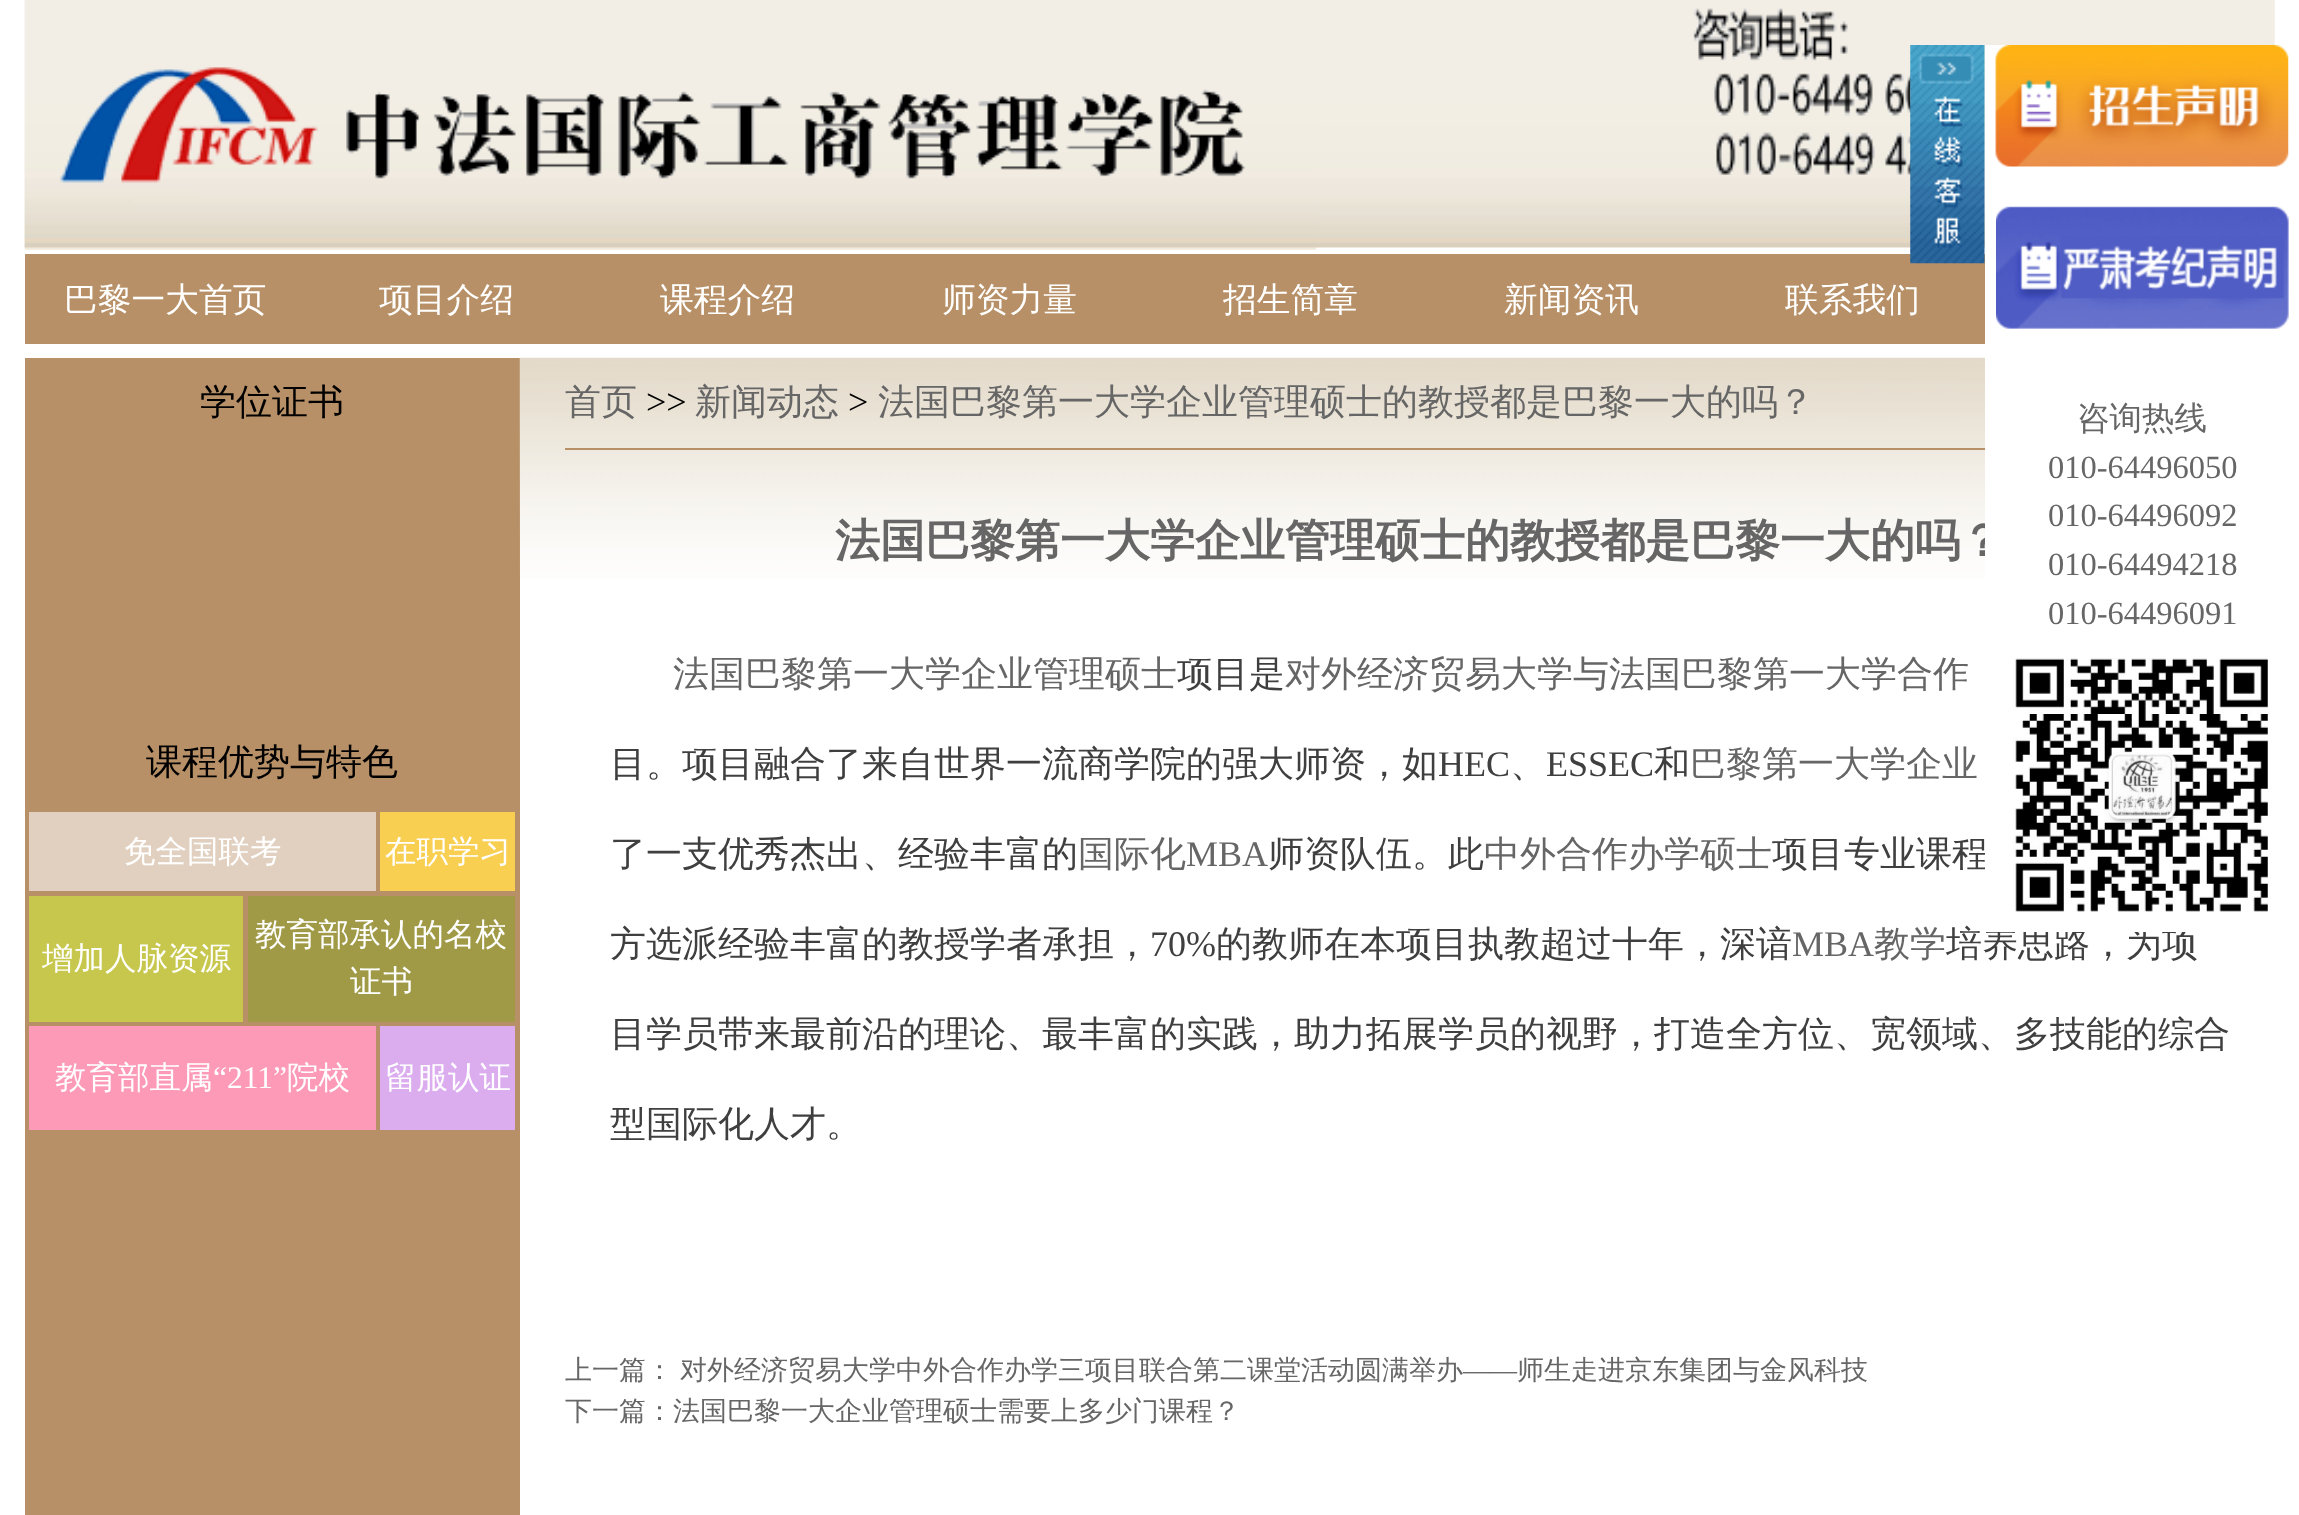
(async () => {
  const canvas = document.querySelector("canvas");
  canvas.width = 2299;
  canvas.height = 1515;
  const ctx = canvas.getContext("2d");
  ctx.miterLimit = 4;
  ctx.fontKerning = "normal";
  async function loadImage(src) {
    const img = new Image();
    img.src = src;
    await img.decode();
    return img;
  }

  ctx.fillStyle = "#ffffff";
  ctx.fillRect(0, 0, 2299, 1515);
  ctx.drawImage(await loadImage("img/1.png"), 24, 0, 2251, 248);
  ctx.drawImage(await loadImage("img/2.png"), 24, 0, 1293, 250);
  ctx.drawImage(await loadImage("img/3.png"), 1693, 8, 218, 167);
  for (const [x, y, w, h, color] of [
    [25, 254, 1960, 90, "#b79067"],
    [25, 358, 495, 1157, "#b79067"],
    [29, 812, 347, 79, "#e1d0bf"],
    [380, 812, 135, 79, "#f9cf51"],
    [29, 896, 214, 126, "#c7c74e"],
    [248, 896, 267, 126, "#a09a47"],
    [29, 1026, 347, 104, "#fc9ab8"],
    [380, 1026, 135, 104, "#dbadef"],
  ]) {
    ctx.fillStyle = color;
    ctx.fillRect(x, y, w, h);
  }
  ctx.drawImage(await loadImage("img/4.png"), 519, 357, 1466, 222);
  ctx.fillStyle = "#b79067";
  ctx.fillRect(565, 448, 1420, 2);
  ctx.drawImage(await loadImage("img/5.png"), 1910, 45, 75, 219);
  ctx.drawImage(await loadImage("img/6.png"), 1936, 62, 21, 13);
  ctx.font = "500 33.75px WenQuanYi Zen Hei";
  ctx.fillStyle = "#ffffff";
  for (const [text, x, y] of [
    ["巴黎一大首页", 64, 311],
    ["项目介绍", 379, 311],
    ["课程介绍", 660, 311],
    ["师资力量", 942, 311],
    ["招生简章", 1223, 311],
    ["新闻资讯", 1504, 311],
    ["联系我们", 1785, 311],
  ]) {
    ctx.fillText(text, x, y);
  }
  ctx.font = "500 36px WenQuanYi Zen Hei";
  ctx.fillStyle = "#000000";
  ctx.fillText("学位证书", 200, 414);
  ctx.fillText("课程优势与特色", 146, 774);
  ctx.font = "500 31.5px WenQuanYi Zen Hei";
  ctx.fillStyle = "#ffffff";
  for (const [text, x, y] of [
    ["免全国联考", 124, 862],
    ["在职学习", 385, 862],
    ["增加人脉资源", 42, 969],
    ["教育部承认的名校", 255, 945],
    ["证书", 350, 992],
    ["教育部直属", 55, 1088],
  ]) {
    ctx.fillText(text, x, y);
  }
  ctx.font = "31.5px Liberation Serif";
  ctx.fillText("“211”", 213, 1088);
  ctx.font = "500 31.5px WenQuanYi Zen Hei";
  ctx.fillText("院校", 287, 1088);
  ctx.fillText("留服认证", 385, 1088);
  ctx.font = "500 36px WenQuanYi Zen Hei";
  ctx.fillStyle = "#666666";
  ctx.fillText("首页", 565, 414);
  ctx.font = "36px Liberation Serif";
  ctx.fillStyle = "#000000";
  ctx.fillText(">>", 646, 414);
  ctx.font = "500 36px WenQuanYi Zen Hei";
  ctx.fillStyle = "#666666";
  ctx.fillText("新闻动态", 695, 414);
  ctx.font = "36px Liberation Serif";
  ctx.fillStyle = "#000000";
  ctx.fillText(">", 848, 414);
  ctx.font = "500 36px WenQuanYi Zen Hei";
  ctx.fillStyle = "#666666";
  ctx.fillText("法国巴黎第一大学企业管理硕士的教授都是巴黎一大的吗？", 878, 414);
  ctx.font = "bold 45px WenQuanYi Zen Hei";
  ctx.fillText("法国巴黎第一大学企业管理硕士的教授都是巴黎一大的吗？", 835, 556);
  ctx.font = "500 36px WenQuanYi Zen Hei";
  ctx.fillText("法国巴黎第一大学企业管理硕士", 673, 686);
  ctx.fillStyle = "#3f3f3f";
  ctx.fillText("项目是", 1177, 686);
  ctx.fillStyle = "#666666";
  ctx.fillText("对外经济贸易大学与法国巴黎第一大学合作", 1285, 686);
  ctx.fillStyle = "#3f3f3f";
  ctx.fillText("目。项目融合了来自世界一流商学院的强大师资，如", 610, 776);
  ctx.font = "36px Liberation Serif";
  ctx.fillText("HEC", 1438, 776);
  ctx.font = "500 36px WenQuanYi Zen Hei";
  ctx.fillText("、", 1510, 776);
  ctx.font = "36px Liberation Serif";
  ctx.fillText("ESSEC", 1546, 776);
  ctx.font = "500 36px WenQuanYi Zen Hei";
  ctx.fillText("和", 1654, 776);
  ctx.fillStyle = "#666666";
  ctx.fillText("巴黎第一大学企业", 1690, 776);
  ctx.fillStyle = "#3f3f3f";
  ctx.fillText("了一支优秀杰出、经验丰富的", 610, 866);
  ctx.fillStyle = "#666666";
  ctx.fillText("国际化", 1078, 866);
  ctx.font = "36px Liberation Serif";
  ctx.fillText("MBA", 1186, 866);
  ctx.font = "500 36px WenQuanYi Zen Hei";
  ctx.fillStyle = "#3f3f3f";
  ctx.fillText("师资队伍。此", 1268, 866);
  ctx.fillStyle = "#666666";
  ctx.fillText("中外合作办学硕士", 1484, 866);
  ctx.fillStyle = "#3f3f3f";
  ctx.fillText("项目专业课程", 1772, 866);
  ctx.fillText("方选派经验丰富的教授学者承担，", 610, 956);
  ctx.font = "36px Liberation Serif";
  ctx.fillText("70%", 1150, 956);
  ctx.font = "500 36px WenQuanYi Zen Hei";
  ctx.fillText("的教师在本项目执教超过十年，深谙", 1216, 956);
  ctx.font = "36px Liberation Serif";
  ctx.fillStyle = "#666666";
  ctx.fillText("MBA", 1792, 956);
  ctx.font = "500 36px WenQuanYi Zen Hei";
  ctx.fillText("教学", 1874, 956);
  ctx.fillStyle = "#3f3f3f";
  for (const [text, x, y] of [
    ["培养思路，为项", 1946, 956],
    ["目学员带来最前沿的理论、最丰富的实践，助力拓展学员的视野，打造全方位、宽领域、多技能的综合", 610, 1046],
    ["型国际化人才。", 610, 1136],
  ]) {
    ctx.fillText(text, x, y);
  }
  ctx.font = "500 27px WenQuanYi Zen Hei";
  ctx.fillStyle = "#666666";
  ctx.fillText("上一篇：", 565, 1379);
  ctx.fillText("对外经济贸易大学中外合作办学三项目联合第二课堂活动圆满举办", 680, 1379);
  ctx.font = "27px Liberation Serif";
  ctx.fillText("——", 1463, 1379);
  ctx.font = "500 27px WenQuanYi Zen Hei";
  ctx.fillText("师生走进京东集团与金风科技", 1517, 1379);
  ctx.fillText("下一篇：法国巴黎一大企业管理硕士需要上多少门课程？", 565, 1420);
  ctx.fillStyle = "#ffffff";
  ctx.fillRect(1985, 45, 290, 887);
  ctx.drawImage(await loadImage("img/7.png"), 1995, 45, 294, 122);
  ctx.drawImage(await loadImage("img/8.png"), 1996, 206, 293, 123);
  ctx.font = "500 32.5px WenQuanYi Zen Hei";
  ctx.fillStyle = "#666666";
  ctx.fillText("咨询热线", 2077, 429);
  ctx.font = "32.5px Liberation Serif";
  for (const [text, x, y] of [
    ["010-64496050", 2048, 478],
    ["010-64496092", 2048, 526],
    ["010-64494218", 2048, 575],
    ["010-64496091", 2048, 624],
  ]) {
    ctx.fillText(text, x, y);
  }
  ctx.drawImage(await loadImage("img/9.png"), 2013, 658, 255, 254);
})();
